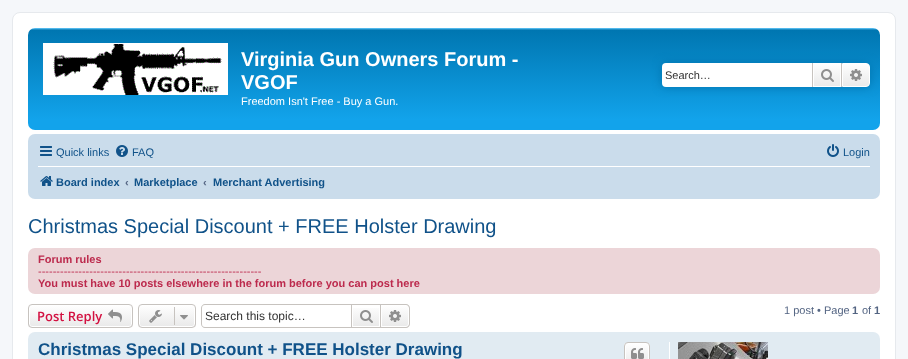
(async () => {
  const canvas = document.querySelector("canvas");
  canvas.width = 908;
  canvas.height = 359;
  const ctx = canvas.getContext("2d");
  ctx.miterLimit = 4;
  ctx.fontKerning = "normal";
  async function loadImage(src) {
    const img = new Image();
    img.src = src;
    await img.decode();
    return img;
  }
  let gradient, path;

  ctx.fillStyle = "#f5f7fa";
  ctx.fillRect(0, 0, 908, 359);
  ctx.fillStyle = "#ffffff";
  ctx.beginPath();
  ctx.roundRect(12.5, 12.5, 883, 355, 7.5);
  ctx.fill();
  ctx.strokeStyle = "#e6e9ed";
  ctx.stroke();
  gradient = ctx.createLinearGradient(454, 28, 454, 130);
  gradient.addColorStop(0, "#6aceff");
  gradient.addColorStop(0.02, "#0076b1");
  gradient.addColorStop(0.9, "#12a3eb");
  gradient.addColorStop(1, "#12a3eb");
  ctx.fillStyle = gradient;
  ctx.beginPath();
  ctx.roundRect(28, 28, 852, 102, 7);
  ctx.fill();
  ctx.drawImage(await loadImage("img/1.png"), 43, 43, 185, 52);
  ctx.fillStyle = "#0075b0";
  ctx.filter = "blur(5px)";
  ctx.beginPath();
  ctx.roundRect(662, 63, 208, 24, 4);
  ctx.fill();
  ctx.filter = "none";
  ctx.fillStyle = "#ffffff";
  ctx.beginPath();
  ctx.roundRect(662, 63, 150, 24, [4, 0, 0, 4]);
  ctx.fill();
  gradient = ctx.createLinearGradient(827, 63, 827, 87);
  gradient.addColorStop(0, "#ffffff");
  gradient.addColorStop(1, "#e9e9e9");
  ctx.fillStyle = gradient;
  ctx.fillRect(814, 64, 26, 22);
  ctx.strokeStyle = "#ffffff";
  ctx.strokeRect(813.5, 63.5, 27, 23);
  ctx.fillStyle = "#c7c3bf";
  ctx.fillRect(841, 63, 1, 24);
  ctx.fillRect(812, 63, 1, 24);
  ctx.drawImage(await loadImage("img/2.png"), 821, 69, 13, 13);
  gradient = ctx.createLinearGradient(856, 63, 856, 87);
  gradient.addColorStop(0, "#ffffff");
  gradient.addColorStop(1, "#e9e9e9");
  ctx.fillStyle = gradient;
  ctx.beginPath();
  ctx.roundRect(842.5, 63.5, 27, 23, [0, 3.5, 3.5, 0]);
  ctx.fill();
  ctx.stroke();
  ctx.drawImage(await loadImage("img/3.png"), 850, 69, 12, 12);
  ctx.fillStyle = "#cadceb";
  ctx.beginPath();
  ctx.roundRect(28, 134, 852, 65, 7);
  ctx.fill();
  ctx.drawImage(await loadImage("img/4.png"), 40, 146, 12, 10);
  ctx.drawImage(await loadImage("img/5.png"), 116, 145, 12, 12);
  ctx.drawImage(await loadImage("img/6.png"), 827, 144, 12, 13);
  ctx.fillStyle = "#ffffff";
  ctx.fillRect(38, 166, 832, 1);
  ctx.drawImage(await loadImage("img/7.png"), 40, 176, 13, 10);
  ctx.fillStyle = "#ecd5d8";
  ctx.beginPath();
  ctx.roundRect(28, 248, 852, 46, 7);
  ctx.fill();
  ctx.save();
  ctx.beginPath();
  ctx.roundRect(28, 304, 105, 24, 4);
  ctx.clip();
  gradient = ctx.createLinearGradient(81, 305, 81, 327);
  gradient.addColorStop(0, "#ffffff");
  gradient.addColorStop(1, "#e9e9e9");
  ctx.fillStyle = gradient;
  ctx.fillRect(28, 305, 105, 22);
  ctx.restore();
  ctx.beginPath();
  ctx.roundRect(29.5, 305.5, 102, 21, 2.5);
  ctx.stroke();
  ctx.beginPath();
  ctx.roundRect(28.5, 304.5, 104, 23, 3.5);
  ctx.strokeStyle = "#c7c3bf";
  ctx.stroke();
  ctx.drawImage(await loadImage("img/8.png"), 108, 309, 14, 13);
  ctx.save();
  ctx.beginPath();
  ctx.roundRect(138, 304, 58, 24, 4);
  ctx.clip();
  gradient = ctx.createLinearGradient(167, 305, 167, 327);
  gradient.addColorStop(0, "#ffffff");
  gradient.addColorStop(1, "#e9e9e9");
  ctx.fillStyle = gradient;
  ctx.fillRect(138, 305, 58, 22);
  ctx.restore();
  ctx.beginPath();
  ctx.roundRect(139.5, 305.5, 55, 21, 2.5);
  ctx.strokeStyle = "#ffffff";
  ctx.stroke();
  ctx.beginPath();
  ctx.roundRect(138.5, 304.5, 57, 23, 3.5);
  ctx.strokeStyle = "#c7c3bf";
  ctx.stroke();
  ctx.drawImage(await loadImage("img/9.png"), 149, 310, 13, 13);
  ctx.fillStyle = "#c7c3bf";
  ctx.fillRect(174, 307, 1, 18);
  ctx.drawImage(await loadImage("img/10.png"), 180, 315, 8, 5);
  path = new Path2D("M205 304H351V328H205C203 328 201 326 201 324V308C201 306 203 304 205 304ZM205 305H351V327H205C203 327 202 326 202 324V308C202 306 203 305 205 305Z");
  ctx.fill(path, "evenodd");
  gradient = ctx.createLinearGradient(366, 305, 366, 327);
  gradient.addColorStop(0, "#ffffff");
  gradient.addColorStop(1, "#e9e9e9");
  ctx.fillStyle = gradient;
  ctx.fillRect(353, 308, 26, 18);
  ctx.strokeRect(351.5, 304.5, 29, 23);
  ctx.drawImage(await loadImage("img/11.png"), 360, 310, 13, 13);
  gradient = ctx.createLinearGradient(395, 305, 395, 327);
  gradient.addColorStop(0, "#ffffff");
  gradient.addColorStop(1, "#e9e9e9");
  ctx.fillStyle = gradient;
  ctx.beginPath();
  ctx.roundRect(381.5, 305.5, 27, 21, [0, 2.5, 2.5, 0]);
  ctx.fill();
  ctx.strokeStyle = "#ffffff";
  ctx.stroke();
  ctx.fillStyle = "#c7c3bf";
  path = new Path2D("M381 304H406C408 304 410 306 410 308V324C410 326 408 328 406 328H381ZM381 305H406C407.5 305 409 306.5 409 308V324C409 325.5 407.5 327 406 327H381Z");
  ctx.fill(path, "evenodd");
  ctx.drawImage(await loadImage("img/12.png"), 389, 310, 12, 12);
  ctx.fillStyle = "#e1ebf2";
  ctx.beginPath();
  ctx.roundRect(28, 332, 852, 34, 7);
  ctx.fill();
  ctx.save();
  ctx.beginPath();
  ctx.roundRect(624, 342, 26, 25, 4);
  ctx.clip();
  gradient = ctx.createLinearGradient(637, 343, 637, 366);
  gradient.addColorStop(0, "#ffffff");
  gradient.addColorStop(1, "#e9e9e9");
  ctx.fillStyle = gradient;
  ctx.fillRect(624, 343, 26, 16);
  ctx.restore();
  ctx.beginPath();
  ctx.roundRect(625.5, 343.5, 23, 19, 2.5);
  ctx.stroke();
  ctx.beginPath();
  ctx.roundRect(624.5, 342.5, 25, 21, 3.5);
  ctx.strokeStyle = "#c7c3bf";
  ctx.stroke();
  ctx.drawImage(await loadImage("img/13.png"), 631, 348, 13, 11);
  ctx.fillStyle = "#ffffff";
  ctx.fillRect(669, 342, 1, 17);
  ctx.drawImage(await loadImage("img/14.png"), 678, 342, 90, 17);
  ctx.font = "bold 20px Liberation Sans";
  ctx.fillText("Virginia Gun Owners Forum -", 241, 66);
  ctx.fillText("VGOF", 241, 89);
  ctx.font = "11px Liberation Sans";
  ctx.fillText("Freedom Isn't Free - Buy a Gun.", 241, 105);
  ctx.fillStyle = "#333333";
  ctx.fillText("Search…", 665, 79);
  ctx.fillStyle = "#105289";
  for (const [text, x, y] of [
    ["Quick links", 56, 156],
    ["FAQ", 132, 156],
    ["Login", 843, 156],
  ]) {
    ctx.fillText(text, x, y);
  }
  ctx.font = "bold 11px Liberation Sans";
  ctx.fillText("Board index", 56, 186);
  ctx.fillStyle = "#536482";
  ctx.fillText("‹", 125, 186);
  ctx.fillStyle = "#105289";
  ctx.fillText("Marketplace", 134, 186);
  ctx.fillStyle = "#536482";
  ctx.fillText("‹", 203, 186);
  ctx.fillStyle = "#105289";
  ctx.fillText("Merchant Advertising", 213, 186);
  ctx.font = "20px Liberation Sans";
  ctx.fillText("Christmas Special Discount + FREE Holster Drawing", 28, 233);
  ctx.font = "bold 11px Liberation Sans";
  ctx.fillStyle = "#bc2a4d";
  ctx.fillText("Forum rules", 38, 263);
  ctx.font = "11px Liberation Sans";
  ctx.fillText("-------------------------------------------------------------", 38, 275);
  ctx.font = "bold 11px Liberation Sans";
  ctx.fillText("You must have 10 posts elsewhere in the forum before you can post here", 38, 287);
  ctx.font = "600 13px Open Sans";
  ctx.fillStyle = "#d31141";
  ctx.fillText("Post Reply", 37, 321);
  ctx.font = "12px Liberation Sans";
  ctx.fillStyle = "#333333";
  ctx.fillText("Search this topic…", 205, 320);
  ctx.font = "11px Liberation Sans";
  ctx.fillStyle = "#536482";
  ctx.fillText("1 post • Page", 784, 314);
  ctx.font = "bold 11px Liberation Sans";
  ctx.fillText("1", 852, 314);
  ctx.font = "11px Liberation Sans";
  ctx.fillText("of", 862, 314);
  ctx.font = "bold 11px Liberation Sans";
  ctx.fillText("1", 874, 314);
  ctx.font = "bold 17px Liberation Sans";
  ctx.fillStyle = "#105289";
  ctx.fillText("Christmas Special Discount + FREE Holster Drawing", 38, 355);
})();
